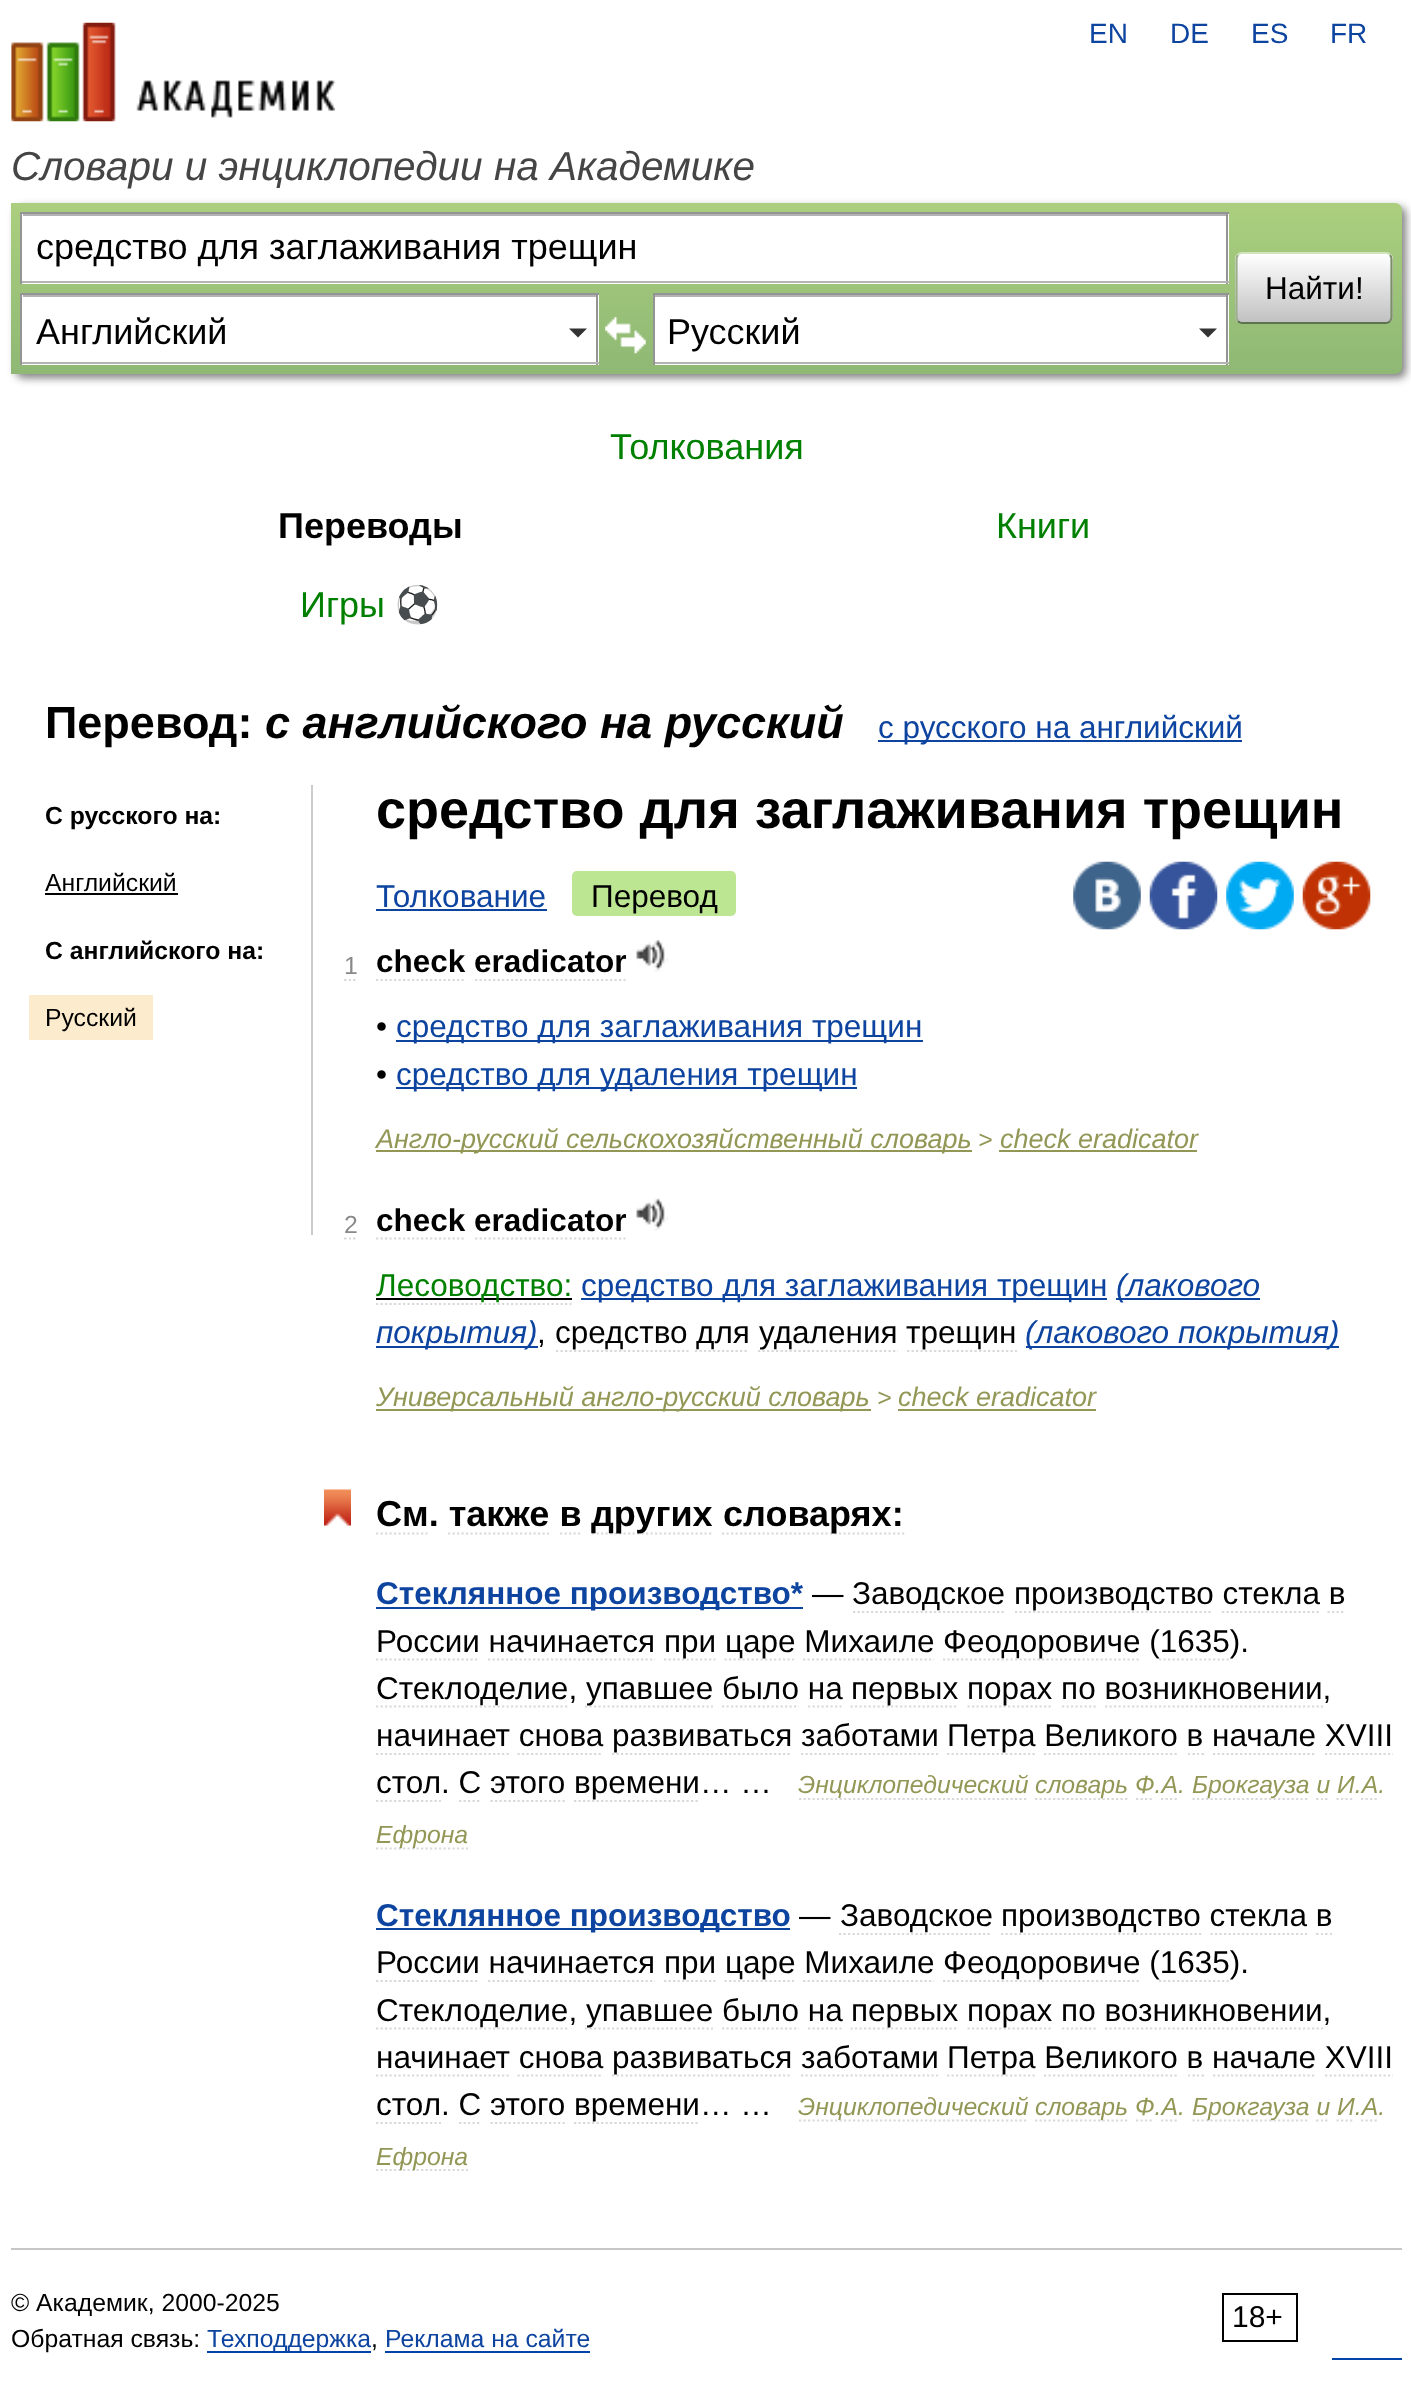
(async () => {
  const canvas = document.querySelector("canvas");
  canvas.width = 1411;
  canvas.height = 2404;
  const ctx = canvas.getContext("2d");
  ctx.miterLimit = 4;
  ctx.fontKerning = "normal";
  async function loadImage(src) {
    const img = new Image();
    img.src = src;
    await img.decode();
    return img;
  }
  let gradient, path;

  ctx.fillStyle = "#ffffff";
  ctx.fillRect(0, 0, 1411, 2404);
  ctx.drawImage(await loadImage("img/1.png"), 11, 22, 325, 100);
  ctx.fillStyle = "rgba(0, 0, 0, 0.5)";
  ctx.filter = "blur(4.5px)";
  ctx.beginPath();
  ctx.roundRect(16, 207, 1390, 171, 7);
  ctx.fill();
  ctx.filter = "none";
  gradient = ctx.createLinearGradient(707, 202, 707, 374);
  gradient.addColorStop(0, "#abcf7e");
  gradient.addColorStop(1, "#8eb874");
  ctx.fillStyle = gradient;
  ctx.beginPath();
  ctx.roundRect(11, 203, 1391, 171, [0, 7, 7, 0]);
  ctx.fill();
  for (const [x, y, w, h, color] of [
    [22, 214, 1207, 70, "#ffffff"],
    [23, 214, 1203, 2, "#b3b3b3"],
    [20, 212, 1209, 2, "#949494"],
    [1226, 212, 2, 72, "#949494"],
    [20, 281, 1209, 2, "#b4b4b4"],
    [20, 212, 2, 72, "#949494"],
    [22, 295, 577, 70, "#ffffff"],
    [23, 295, 573, 2, "#b3b3b3"],
    [20, 293, 579, 2, "#949494"],
    [596, 293, 2, 72, "#949494"],
    [20, 362, 579, 2, "#b4b4b4"],
    [20, 293, 2, 72, "#949494"],
  ]) {
    ctx.fillStyle = color;
    ctx.fillRect(x, y, w, h);
  }
  ctx.fillStyle = "#333333";
  path = new Path2D("M569 328.5H587L578 337.5Z");
  ctx.fill(path);
  ctx.drawImage(await loadImage("img/2.png"), 605, 317, 41, 37);
  for (const [x, y, w, h, color] of [
    [655, 295, 574, 70, "#ffffff"],
    [655, 295, 571, 2, "#b3b3b3"],
    [653, 293, 576, 2, "#949494"],
    [1226, 293, 2, 72, "#949494"],
    [653, 362, 576, 2, "#b4b4b4"],
    [653, 293, 2, 72, "#949494"],
  ]) {
    ctx.fillStyle = color;
    ctx.fillRect(x, y, w, h);
  }
  ctx.fillStyle = "#333333";
  path = new Path2D("M1199 328.5H1217L1208 337.5Z");
  ctx.fill(path);
  ctx.save();
  ctx.beginPath();
  ctx.roundRect(1235, 252, 158, 72, 7);
  ctx.clip();
  gradient = ctx.createLinearGradient(1314, 254, 1314, 322);
  gradient.addColorStop(0, "#ffffff");
  gradient.addColorStop(1, "#c1c1c1");
  ctx.fillStyle = gradient;
  ctx.fillRect(1235, 254, 158, 68);
  ctx.restore();
  path = new Path2D("M1238 255C1239 253.5 1240.5 253 1242 253H1386C1387.5 253 1389 253.5 1390 255");
  ctx.strokeStyle = "#d1e4bc";
  ctx.lineWidth = 2.2;
  ctx.stroke(path);
  path = new Path2D("M1390 255C1391 256 1391.5 257.5 1391.5 259V317C1391.5 318.5 1391 320 1390 321");
  ctx.strokeStyle = "#7a8e69";
  ctx.stroke(path);
  path = new Path2D("M1390 321C1389 322.5 1387.5 323 1386 323H1242C1240.5 323 1239 322.5 1238 321");
  ctx.strokeStyle = "#5d7250";
  ctx.stroke(path);
  path = new Path2D("M1238 321C1237 320 1236.5 318.5 1236.5 317V259C1236.5 257.5 1237 256 1238 255");
  ctx.strokeStyle = "#9aae89";
  ctx.stroke(path);
  for (const [x, y, w, h, color] of [
    [878, 740, 364, 2, "#0d44a0"],
    [311, 785, 2, 450, "#cccccc"],
    [45, 893, 133, 2, "#000000"],
    [29, 995, 124, 45, "#fcebcc"],
    [376, 909, 171, 2, "#0d44a0"],
  ]) {
    ctx.fillStyle = color;
    ctx.fillRect(x, y, w, h);
  }
  ctx.fillStyle = "#bde693";
  ctx.beginPath();
  ctx.roundRect(572, 871, 164, 45, 5);
  ctx.fill();
  ctx.drawImage(await loadImage("img/3.png"), 1073, 861, 68, 69);
  ctx.drawImage(await loadImage("img/4.png"), 1149, 861, 69, 69);
  ctx.drawImage(await loadImage("img/5.png"), 1226, 861, 68, 69);
  ctx.drawImage(await loadImage("img/6.png"), 1302, 861, 69, 69);
  path = new Path2D("M344 980H346.5M349 980H351M353 980H355.5");
  ctx.strokeStyle = "#d9d9d9";
  ctx.stroke(path);
  path = new Path2D("M376 980H466");
  ctx.setLineDash([2.25, 2.25]);
  ctx.stroke(path);
  path = new Path2D("M475 980H625.5");
  ctx.stroke(path);
  ctx.drawImage(await loadImage("img/7.png"), 636, 940, 32, 32);
  for (const [x, y, w, h, color] of [
    [396, 1040, 527, 2, "#0d44a0"],
    [396, 1087, 461, 2, "#0d44a0"],
    [376, 1150, 596, 2, "#939756"],
    [999, 1150, 198, 2, "#939756"],
  ]) {
    ctx.fillStyle = color;
    ctx.fillRect(x, y, w, h);
  }
  path = new Path2D("M344 1238.5H346.5M349 1238.5H351M353 1238.5H355.5");
  ctx.setLineDash([]);
  ctx.stroke(path);
  path = new Path2D("M376 1238.5H466");
  ctx.setLineDash([2.25, 2.25]);
  ctx.stroke(path);
  path = new Path2D("M475 1238.5H625.5");
  ctx.stroke(path);
  ctx.drawImage(await loadImage("img/8.png"), 636, 1198, 32, 33);
  path = new Path2D("M376 1304H571.5");
  ctx.stroke(path);
  for (const [x, y, w, h, color] of [
    [376, 1298, 196, 2, "#000000"],
    [581, 1298, 526, 2, "#0d44a0"],
    [1116, 1298, 11, 2, "#0d44a0"],
    [1127, 1298, 133, 2, "#0d44a0"],
    [376, 1346, 162, 2, "#0d44a0"],
  ]) {
    ctx.fillStyle = color;
    ctx.fillRect(x, y, w, h);
  }
  path = new Path2D("M556 1351H688.5");
  ctx.stroke(path);
  path = new Path2D("M695 1351H749");
  ctx.stroke(path);
  path = new Path2D("M758 1351H898");
  ctx.stroke(path);
  path = new Path2D("M907 1351H1017");
  ctx.stroke(path);
  for (const [x, y, w, h, color] of [
    [1026, 1346, 9, 2, "#0d44a0"],
    [1035, 1346, 304, 2, "#0d44a0"],
    [376, 1409, 495, 2, "#939756"],
    [898, 1409, 198, 2, "#939756"],
  ]) {
    ctx.fillStyle = color;
    ctx.fillRect(x, y, w, h);
  }
  ctx.drawImage(await loadImage("img/9.png"), 324, 1489, 27, 37);
  path = new Path2D("M376 1533.5H427.5");
  ctx.stroke(path);
  path = new Path2D("M592 1533.5H713");
  ctx.stroke(path);
  path = new Path2D("M722 1533.5H904.5");
  ctx.stroke(path);
  path = new Path2D("M448 1533.5H549");
  ctx.stroke(path);
  path = new Path2D("M560 1533.5H580.5");
  ctx.stroke(path);
  ctx.fillStyle = "#0d44a0";
  ctx.fillRect(376, 1607, 427, 2);
  path = new Path2D("M853 1612H1006");
  ctx.stroke(path);
  path = new Path2D("M1015 1612H1213");
  ctx.stroke(path);
  path = new Path2D("M376 1659.5H479");
  ctx.stroke(path);
  path = new Path2D("M664 1659.5H715.5");
  ctx.stroke(path);
  path = new Path2D("M724.5 1659.5H794");
  ctx.stroke(path);
  path = new Path2D("M943 1659.5H1141");
  ctx.stroke(path);
  path = new Path2D("M488 1659.5H655");
  ctx.stroke(path);
  path = new Path2D("M376 1706.5H569");
  ctx.stroke(path);
  path = new Path2D("M585 1706.5H713");
  ctx.stroke(path);
  path = new Path2D("M850.5 1706.5H958.5");
  ctx.stroke(path);
  path = new Path2D("M967.5 1706.5H1053");
  ctx.stroke(path);
  path = new Path2D("M376 1754H511");
  ctx.stroke(path);
  path = new Path2D("M612 1754H792");
  ctx.stroke(path);
  path = new Path2D("M947 1754H1035");
  ctx.stroke(path);
  path = new Path2D("M517.5 1754H603");
  ctx.stroke(path);
  path = new Path2D("M376 1801H441");
  ctx.stroke(path);
  path = new Path2D("M574 1801H700");
  ctx.stroke(path);
  path = new Path2D("M799 1799H1028");
  ctx.stroke(path);
  path = new Path2D("M1035 1799H1129.5");
  ctx.stroke(path);
  path = new Path2D("M1192.5 1799H1309.5");
  ctx.stroke(path);
  path = new Path2D("M459 1801H481.5");
  ctx.stroke(path);
  path = new Path2D("M490.5 1801H565");
  ctx.stroke(path);
  path = new Path2D("M376 1848.5H468");
  ctx.stroke(path);
  ctx.fillRect(376, 1928, 414, 2);
  path = new Path2D("M839 1934H992");
  ctx.stroke(path);
  path = new Path2D("M1001 1934H1201.5");
  ctx.stroke(path);
  path = new Path2D("M376 1981H479");
  ctx.stroke(path);
  path = new Path2D("M664 1981H715.5");
  ctx.stroke(path);
  path = new Path2D("M724.5 1981H794");
  ctx.stroke(path);
  path = new Path2D("M943 1981H1141");
  ctx.stroke(path);
  path = new Path2D("M488 1981H655");
  ctx.stroke(path);
  path = new Path2D("M376 2028.5H569");
  ctx.stroke(path);
  path = new Path2D("M585 2028.5H713");
  ctx.stroke(path);
  path = new Path2D("M850.5 2028.5H958.5");
  ctx.stroke(path);
  path = new Path2D("M967.5 2028.5H1053");
  ctx.stroke(path);
  path = new Path2D("M376 2075.5H511");
  ctx.stroke(path);
  path = new Path2D("M612 2075.5H792");
  ctx.stroke(path);
  path = new Path2D("M947 2075.5H1035");
  ctx.stroke(path);
  path = new Path2D("M517.5 2075.5H603");
  ctx.stroke(path);
  path = new Path2D("M376 2123H441");
  ctx.stroke(path);
  path = new Path2D("M574 2123H700");
  ctx.stroke(path);
  path = new Path2D("M799 2120.5H1028");
  ctx.stroke(path);
  path = new Path2D("M1035 2120.5H1129.5");
  ctx.stroke(path);
  path = new Path2D("M1192.5 2120.5H1309.5");
  ctx.stroke(path);
  path = new Path2D("M459 2123H481.5");
  ctx.stroke(path);
  path = new Path2D("M490.5 2123H565");
  ctx.stroke(path);
  path = new Path2D("M376 2170H468");
  ctx.stroke(path);
  ctx.fillStyle = "#c7c7c7";
  ctx.fillRect(11, 2248, 1391, 2);
  ctx.strokeStyle = "#000000";
  ctx.lineWidth = 2;
  ctx.setLineDash([]);
  ctx.strokeRect(1223, 2294, 74, 47);
  for (const [x, y, w, h, color] of [
    [207, 2351, 164, 2, "#0044aa"],
    [385, 2351, 205, 2, "#0044aa"],
    [1332, 2358, 70, 2, "#0044aa"],
  ]) {
    ctx.fillStyle = color;
    ctx.fillRect(x, y, w, h);
  }
  ctx.font = "28px Liberation Sans";
  ctx.fillStyle = "#0d44a0";
  for (const [text, x, y] of [
    ["EN", 1089, 43],
    ["DE", 1170, 43],
    ["ES", 1251, 43],
    ["FR", 1330, 43],
  ]) {
    ctx.fillText(text, x, y);
  }
  ctx.font = "italic 40.5px Liberation Sans";
  ctx.fillStyle = "#454545";
  ctx.fillText("Словари и энциклопедии на Академике", 11, 180);
  ctx.font = "36px Liberation Sans";
  ctx.fillStyle = "#000000";
  for (const [text, x, y] of [
    ["средство для заглаживания трещин", 36, 259],
    ["Английский", 36, 344],
    ["Русский", 667, 344],
  ]) {
    ctx.fillText(text, x, y);
  }
  ctx.font = "31.5px Liberation Sans";
  ctx.fillText("Найти!", 1265, 299);
  ctx.font = "36px Liberation Sans";
  ctx.fillStyle = "#008000";
  ctx.fillText("Толкования", 610, 459);
  ctx.font = "bold 36px Liberation Sans";
  ctx.fillStyle = "#000000";
  ctx.fillText("Переводы", 278, 538);
  ctx.font = "36px Liberation Sans";
  ctx.fillStyle = "#008000";
  ctx.fillText("Книги", 996, 538);
  ctx.fillText("Игры", 300, 617);
  ctx.font = "36px Noto Color Emoji";
  ctx.fillText("⚽", 395, 617);
  ctx.font = "bold 45px Liberation Sans";
  ctx.fillStyle = "#000000";
  ctx.fillText("Перевод:", 45, 738);
  ctx.font = "italic bold 45px Liberation Sans";
  ctx.fillText("с английского на русский", 265, 738);
  ctx.font = "31.5px Liberation Sans";
  ctx.fillStyle = "#0d44a0";
  ctx.fillText("с русского на английский", 878, 738);
  ctx.font = "bold 24.75px Liberation Sans";
  ctx.fillStyle = "#000000";
  ctx.fillText("С русского на:", 45, 824);
  ctx.font = "24.75px Liberation Sans";
  ctx.fillText("Английский", 45, 891);
  ctx.font = "bold 24.75px Liberation Sans";
  ctx.fillText("С английского на:", 45, 959);
  ctx.font = "24.75px Liberation Sans";
  ctx.fillText("Русский", 45, 1026);
  ctx.font = "bold 54px Liberation Sans";
  ctx.fillText("средство для заглаживания трещин", 376, 828);
  ctx.font = "31.5px Liberation Sans";
  ctx.fillStyle = "#0d44a0";
  ctx.fillText("Толкование", 376, 907);
  ctx.fillStyle = "#000000";
  ctx.fillText("Перевод", 591, 907);
  ctx.font = "24.75px Liberation Sans";
  ctx.fillStyle = "#898989";
  ctx.fillText("1", 344, 974);
  ctx.font = "bold 31.5px Liberation Sans";
  ctx.fillStyle = "#000000";
  ctx.fillText("check eradicator", 376, 972);
  ctx.font = "31.5px Liberation Sans";
  ctx.fillText("•", 376, 1037);
  ctx.fillStyle = "#0d44a0";
  ctx.fillText("средство для заглаживания трещин", 396, 1037);
  ctx.fillStyle = "#000000";
  ctx.fillText("•", 376, 1085);
  ctx.fillStyle = "#0d44a0";
  ctx.fillText("средство для удаления трещин", 396, 1085);
  ctx.font = "italic 27px Liberation Sans";
  ctx.fillStyle = "#939756";
  ctx.fillText("Англо-русский сельскохозяйственный словарь", 376, 1148);
  ctx.font = "italic 24.75px Liberation Sans";
  ctx.fillText(">", 978, 1148);
  ctx.font = "italic 27px Liberation Sans";
  ctx.fillText("check eradicator", 1000, 1148);
  ctx.font = "24.75px Liberation Sans";
  ctx.fillStyle = "#898989";
  ctx.fillText("2", 344, 1233);
  ctx.font = "bold 31.5px Liberation Sans";
  ctx.fillStyle = "#000000";
  ctx.fillText("check eradicator", 376, 1231);
  ctx.font = "31.5px Liberation Sans";
  ctx.fillStyle = "#008000";
  ctx.fillText("Лесоводство:", 376, 1296);
  ctx.fillStyle = "#0d44a0";
  ctx.fillText("средство для заглаживания трещин", 581, 1296);
  ctx.font = "italic 31.5px Liberation Sans";
  ctx.fillText("(лакового", 1116, 1296);
  ctx.fillText("покрытия)", 376, 1343);
  ctx.font = "31.5px Liberation Sans";
  ctx.fillStyle = "#000000";
  for (const [text, x, y] of [
    [",", 537, 1343],
    ["средство", 555, 1343],
    ["для", 696, 1343],
    ["удаления", 759, 1343],
    ["трещин", 906, 1343],
  ]) {
    ctx.fillText(text, x, y);
  }
  ctx.font = "italic 31.5px Liberation Sans";
  ctx.fillStyle = "#0d44a0";
  ctx.fillText("(лакового", 1025, 1343);
  ctx.fillText("покрытия)", 1178, 1343);
  ctx.font = "italic 27px Liberation Sans";
  ctx.fillStyle = "#939756";
  ctx.fillText("Универсальный англо-русский словарь", 376, 1406);
  ctx.font = "italic 24.75px Liberation Sans";
  ctx.fillText(">", 877, 1406);
  ctx.font = "italic 27px Liberation Sans";
  ctx.fillText("check eradicator", 898, 1406);
  ctx.font = "bold 36px Liberation Sans";
  ctx.fillStyle = "#000000";
  for (const [text, x, y] of [
    ["См. также в", 376, 1526],
    ["других", 591, 1526],
    ["словарях:", 723, 1526],
  ]) {
    ctx.fillText(text, x, y);
  }
  ctx.font = "bold 31.5px Liberation Sans";
  ctx.fillStyle = "#0d44a0";
  ctx.fillText("Стеклянное производство*", 376, 1604);
  ctx.font = "31.5px Liberation Sans";
  ctx.fillStyle = "#000000";
  for (const [text, x, y] of [
    ["—", 812, 1604],
    ["Заводское", 852, 1604],
    ["производство стекла в", 1014, 1604],
  ]) {
    ctx.fillText(text, x, y);
  }
  path = new Path2D("M1222 1612H1321");
  ctx.strokeStyle = "#d9d9d9";
  ctx.lineWidth = 2.2;
  ctx.setLineDash([2.25, 2.25]);
  ctx.stroke(path);
  path = new Path2D("M1327.5 1612H1345.5");
  ctx.stroke(path);
  for (const [text, x, y] of [
    ["России начинается", 376, 1652],
    ["при", 664, 1652],
    ["царе Михаиле", 725, 1652],
    ["Феодоровиче (1635).", 943, 1652],
  ]) {
    ctx.fillText(text, x, y);
  }
  path = new Path2D("M803 1659.5H934");
  ctx.stroke(path);
  path = new Path2D("M1159 1659.5H1231");
  ctx.stroke(path);
  for (const [text, x, y] of [
    ["Стеклоделие,", 376, 1699],
    ["упавшее было на", 586, 1699],
    ["первых", 851, 1699],
    ["порах по возникновении,", 967, 1699],
  ]) {
    ctx.fillText(text, x, y);
  }
  path = new Path2D("M722 1706.5H799");
  ctx.stroke(path);
  path = new Path2D("M808 1706.5H841.5");
  ctx.stroke(path);
  path = new Path2D("M1062 1706.5H1096");
  ctx.stroke(path);
  path = new Path2D("M1105 1706.5H1323");
  ctx.stroke(path);
  for (const [text, x, y] of [
    ["начинает снова", 376, 1746],
    ["развиваться заботами", 612, 1746],
    ["Петра Великого в начале XVIII", 947, 1746],
  ]) {
    ctx.fillText(text, x, y);
  }
  path = new Path2D("M801 1754H938");
  ctx.stroke(path);
  path = new Path2D("M1044 1754H1179");
  ctx.stroke(path);
  path = new Path2D("M1188 1754H1190M1192.5 1754H1195M1197 1754H1199M1201.5 1754H1204");
  ctx.setLineDash([]);
  ctx.stroke(path);
  path = new Path2D("M1213 1754H1316");
  ctx.setLineDash([2.25, 2.25]);
  ctx.stroke(path);
  path = new Path2D("M1325 1754H1393");
  ctx.stroke(path);
  ctx.fillText("стол. С этого", 376, 1793);
  ctx.fillText("времени… …", 574, 1793);
  ctx.font = "italic 24.75px Liberation Sans";
  ctx.fillStyle = "#939756";
  ctx.fillText("Энциклопедический", 798, 1793);
  ctx.fillText("словарь Ф.А.", 1035, 1793);
  path = new Path2D("M1136 1799H1154M1161 1799H1179");
  ctx.stroke(path);
  ctx.fillText("Брокгауза и И.А.", 1192, 1793);
  path = new Path2D("M1316 1799H1318.5M1321 1799H1323M1325 1799H1327.5");
  ctx.setLineDash([]);
  ctx.stroke(path);
  path = new Path2D("M1336.5 1799H1354.5M1361 1799H1379");
  ctx.setLineDash([2.25, 2.25]);
  ctx.stroke(path);
  ctx.fillText("Ефрона", 376, 1843);
  ctx.font = "bold 31.5px Liberation Sans";
  ctx.fillStyle = "#0d44a0";
  ctx.fillText("Стеклянное производство", 376, 1926);
  ctx.font = "31.5px Liberation Sans";
  ctx.fillStyle = "#000000";
  for (const [text, x, y] of [
    ["—", 799, 1926],
    ["Заводское", 840, 1926],
    ["производство стекла в", 1001, 1926],
  ]) {
    ctx.fillText(text, x, y);
  }
  path = new Path2D("M1210.5 1934H1307");
  ctx.stroke(path);
  path = new Path2D("M1316 1934H1318.5M1321 1934H1323M1325 1934H1327.5M1330 1934H1332");
  ctx.setLineDash([]);
  ctx.stroke(path);
  for (const [text, x, y] of [
    ["России начинается", 376, 1973],
    ["при", 664, 1973],
    ["царе Михаиле", 725, 1973],
    ["Феодоровиче (1635).", 943, 1973],
  ]) {
    ctx.fillText(text, x, y);
  }
  path = new Path2D("M803 1981H934");
  ctx.setLineDash([2.25, 2.25]);
  ctx.stroke(path);
  path = new Path2D("M1159 1981H1231");
  ctx.stroke(path);
  for (const [text, x, y] of [
    ["Стеклоделие,", 376, 2021],
    ["упавшее было на", 586, 2021],
    ["первых", 851, 2021],
    ["порах по возникновении,", 967, 2021],
  ]) {
    ctx.fillText(text, x, y);
  }
  path = new Path2D("M722 2028.5H799");
  ctx.stroke(path);
  path = new Path2D("M808 2028.5H841.5");
  ctx.stroke(path);
  path = new Path2D("M1062 2028.5H1096");
  ctx.stroke(path);
  path = new Path2D("M1105 2028.5H1323");
  ctx.stroke(path);
  for (const [text, x, y] of [
    ["начинает снова", 376, 2068],
    ["развиваться заботами", 612, 2068],
    ["Петра Великого в начале XVIII", 947, 2068],
  ]) {
    ctx.fillText(text, x, y);
  }
  path = new Path2D("M801 2075.5H938");
  ctx.stroke(path);
  path = new Path2D("M1044 2075.5H1179");
  ctx.stroke(path);
  path = new Path2D("M1188 2075.5H1190M1192.5 2075.5H1195M1197 2075.5H1199M1201.5 2075.5H1204");
  ctx.setLineDash([]);
  ctx.stroke(path);
  path = new Path2D("M1213 2075.5H1316");
  ctx.setLineDash([2.25, 2.25]);
  ctx.stroke(path);
  path = new Path2D("M1325 2075.5H1393");
  ctx.stroke(path);
  ctx.fillText("стол. С этого", 376, 2115);
  ctx.fillText("времени… …", 574, 2115);
  ctx.font = "italic 24.75px Liberation Sans";
  ctx.fillStyle = "#939756";
  ctx.fillText("Энциклопедический", 798, 2115);
  ctx.fillText("словарь Ф.А.", 1035, 2115);
  path = new Path2D("M1136 2120.5H1154M1161 2120.5H1179");
  ctx.stroke(path);
  ctx.fillText("Брокгауза и И.А.", 1192, 2115);
  path = new Path2D("M1316 2120.5H1318.5M1321 2120.5H1323M1325 2120.5H1327.5");
  ctx.setLineDash([]);
  ctx.stroke(path);
  path = new Path2D("M1336.5 2120.5H1354.5M1361 2120.5H1379");
  ctx.setLineDash([2.25, 2.25]);
  ctx.stroke(path);
  ctx.fillText("Ефрона", 376, 2165);
  ctx.font = "24.75px Liberation Sans";
  ctx.fillStyle = "#000000";
  ctx.fillText("© Академик, 2000-2025", 11, 2311);
  ctx.font = "30px Liberation Sans";
  ctx.fillText("18+", 1232, 2327);
  ctx.font = "24.75px Liberation Sans";
  ctx.fillText("Обратная связь:", 11, 2347);
  ctx.fillStyle = "#0d44a0";
  ctx.fillText("Техподдержка", 207, 2347);
  ctx.fillStyle = "#000000";
  ctx.fillText(",", 371, 2347);
  ctx.fillStyle = "#0d44a0";
  ctx.fillText("Реклама на сайте", 385, 2347);
})();
